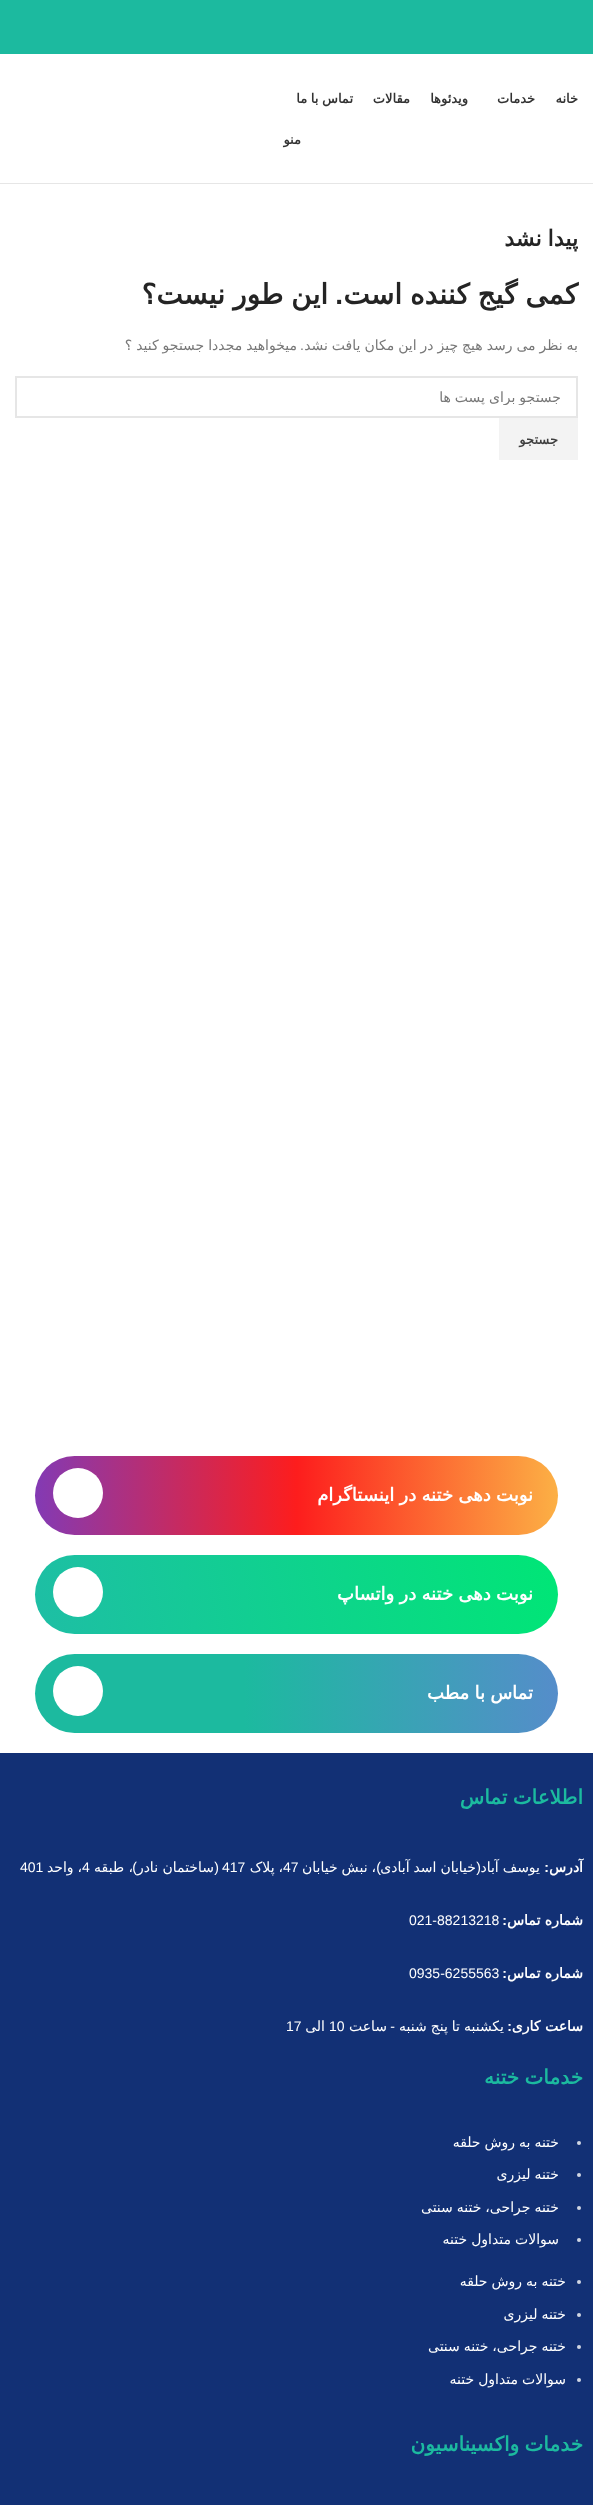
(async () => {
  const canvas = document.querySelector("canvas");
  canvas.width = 593;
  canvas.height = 2505;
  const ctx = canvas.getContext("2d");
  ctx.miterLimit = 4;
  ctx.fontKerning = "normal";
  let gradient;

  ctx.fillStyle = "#ffffff";
  ctx.fillRect(0, 0, 593, 2505);
  ctx.fillStyle = "#1cba9f";
  ctx.fillRect(0, 0, 593, 54);
  ctx.fillStyle = "#e6e6e6";
  ctx.fillRect(0, 183, 593, 1);
  ctx.strokeStyle = "#e6e6e6";
  ctx.lineWidth = 2;
  ctx.strokeRect(16, 377, 561, 40);
  ctx.fillStyle = "#f3f3f3";
  ctx.fillRect(499, 418, 79, 42);
  gradient = ctx.createLinearGradient(35, 1496, 558, 1496);
  gradient.addColorStop(0, "#833ab4");
  gradient.addColorStop(0.5, "#fd1d1d");
  gradient.addColorStop(1, "#fcb045");
  ctx.fillStyle = gradient;
  ctx.beginPath();
  ctx.roundRect(35, 1456, 523, 79, 39.5);
  ctx.fill();
  ctx.fillStyle = "#ffffff";
  ctx.beginPath();
  ctx.arc(78, 1493, 25, 0, Math.PI * 2);
  ctx.fill();
  gradient = ctx.createLinearGradient(37, 1645, 556, 1544);
  gradient.addColorStop(0, "#1ebea5");
  gradient.addColorStop(1, "#00e676");
  ctx.fillStyle = gradient;
  ctx.beginPath();
  ctx.roundRect(35, 1555, 523, 79, 39.5);
  ctx.fill();
  ctx.fillStyle = "#ffffff";
  ctx.beginPath();
  ctx.arc(78, 1592, 25, 0, Math.PI * 2);
  ctx.fill();
  gradient = ctx.createLinearGradient(35, 1694, 558, 1694);
  gradient.addColorStop(0.4, "#1cba9f");
  gradient.addColorStop(1, "#558dca");
  ctx.fillStyle = gradient;
  ctx.beginPath();
  ctx.roundRect(35, 1654, 523, 79, 39.5);
  ctx.fill();
  ctx.fillStyle = "#ffffff";
  ctx.beginPath();
  ctx.arc(78, 1691, 25, 0, Math.PI * 2);
  ctx.fill();
  ctx.fillStyle = "#123075";
  ctx.fillRect(0, 1753, 593, 752);
  ctx.fillStyle = "#d0d6e3";
  ctx.beginPath();
  ctx.arc(579, 2143, 2, 0, Math.PI * 2);
  ctx.fill();
  ctx.beginPath();
  ctx.arc(579, 2175, 2, 0, Math.PI * 2);
  ctx.fill();
  ctx.beginPath();
  ctx.arc(579, 2208, 2, 0, Math.PI * 2);
  ctx.fill();
  ctx.beginPath();
  ctx.arc(579, 2240, 2, 0, Math.PI * 2);
  ctx.fill();
  ctx.beginPath();
  ctx.arc(579, 2282, 2, 0, Math.PI * 2);
  ctx.fill();
  ctx.beginPath();
  ctx.arc(579, 2315, 2, 0, Math.PI * 2);
  ctx.fill();
  ctx.beginPath();
  ctx.arc(579, 2347, 2, 0, Math.PI * 2);
  ctx.fill();
  ctx.beginPath();
  ctx.arc(579, 2380, 2, 0, Math.PI * 2);
  ctx.fill();
  ctx.direction = "rtl";
  ctx.font = "bold 13px DejaVu Sans";
  ctx.fillStyle = "#333333";
  for (const [text, x, y] of [
    ["خانه", 578, 103],
    ["خدمات", 535, 103],
    ["ویدئوها", 468, 103],
    ["مقالات", 410, 103],
  ]) {
    ctx.fillText(text, x, y);
  }
  ctx.wordSpacing = "-0.5px";
  ctx.fillText("تماس با ما", 353, 103);
  ctx.wordSpacing = "0px";
  ctx.fillText("منو", 301, 144);
  ctx.wordSpacing = "-1px";
  ctx.font = "bold 22px DejaVu Sans";
  ctx.fillStyle = "#242424";
  ctx.fillText("پیدا نشد", 578, 246);
  ctx.font = "bold 28px DejaVu Sans";
  ctx.fillText("کمی گیج کننده است", 578, 304);
  ctx.wordSpacing = "0px";
  ctx.font = "bold 28px Liberation Sans";
  ctx.fillText(".", 343, 304);
  ctx.wordSpacing = "-1px";
  ctx.font = "bold 28px DejaVu Sans";
  ctx.fillText("این طور نیست؟", 328, 304);
  ctx.wordSpacing = "-0.5px";
  ctx.font = "14px DejaVu Sans";
  ctx.fillStyle = "#777777";
  ctx.fillText("به نظر می رسد هیچ چیز در این مکان یافت نشد", 578, 350);
  ctx.wordSpacing = "0px";
  ctx.font = "14px Liberation Sans";
  ctx.fillText(".", 304, 350);
  ctx.wordSpacing = "-0.5px";
  ctx.font = "14px DejaVu Sans";
  ctx.fillText("میخواهید مجددا جستجو کنید ؟", 297, 350);
  ctx.save();
  ctx.beginPath();
  ctx.rect(32, 389, 529, 16);
  ctx.clip();
  ctx.fillText("جستجو برای پست ها", 561, 402);
  ctx.restore();
  ctx.wordSpacing = "0px";
  ctx.font = "bold 13px DejaVu Sans";
  ctx.fillStyle = "#3e3e3e";
  ctx.fillText("جستجو", 558, 444);
  ctx.wordSpacing = "-0.5px";
  ctx.font = "bold 18px DejaVu Sans";
  ctx.fillStyle = "#ffffff";
  for (const [text, x, y] of [
    ["نوبت دهی ختنه در اینستاگرام", 533, 1501],
    ["نوبت دهی ختنه در واتساپ", 533, 1600],
    ["تماس با مطب", 533, 1699],
  ]) {
    ctx.fillText(text, x, y);
  }
  ctx.wordSpacing = "-1px";
  ctx.font = "bold 20px DejaVu Sans";
  ctx.fillStyle = "#1cba9f";
  ctx.fillText("اطلاعات تماس", 583, 1804);
  ctx.wordSpacing = "0px";
  ctx.font = "bold 14px DejaVu Sans";
  ctx.fillStyle = "#ffffff";
  ctx.fillText("آدرس", 583, 1872);
  ctx.font = "bold 14px Liberation Sans";
  ctx.fillText(":", 549, 1872);
  ctx.wordSpacing = "-0.5px";
  ctx.font = "14px DejaVu Sans";
  ctx.fillText("یوسف آباد", 540, 1872);
  ctx.wordSpacing = "0px";
  ctx.font = "14px Liberation Sans";
  ctx.fillText("(", 481, 1872);
  ctx.wordSpacing = "-0.5px";
  ctx.font = "14px DejaVu Sans";
  ctx.fillText("خیابان اسد آبادی", 476, 1872);
  ctx.wordSpacing = "0px";
  ctx.font = "14px Liberation Sans";
  ctx.fillText(")", 381, 1872);
  ctx.wordSpacing = "-0.5px";
  ctx.font = "14px DejaVu Sans";
  ctx.fillText("، نبش خیابان", 376, 1872);
  ctx.wordSpacing = "0px";
  ctx.direction = "ltr";
  ctx.font = "14px Liberation Sans";
  ctx.fillText("47", 283, 1872);
  ctx.wordSpacing = "-0.5px";
  ctx.direction = "rtl";
  ctx.font = "14px DejaVu Sans";
  ctx.fillText("، پلاک", 283, 1872);
  ctx.wordSpacing = "0px";
  ctx.direction = "ltr";
  ctx.font = "14px Liberation Sans";
  ctx.fillText("417", 222, 1872);
  ctx.direction = "rtl";
  ctx.fillText("(", 219, 1872);
  ctx.fillText(")", 137, 1872);
  ctx.font = "14px DejaVu Sans";
  ctx.fillText("ساختمان نادر", 214, 1872);
  ctx.fillText("، طبقه", 133, 1872);
  ctx.direction = "ltr";
  ctx.font = "14px Liberation Sans";
  ctx.fillText("4", 82, 1872);
  ctx.wordSpacing = "-0.5px";
  ctx.direction = "rtl";
  ctx.font = "14px DejaVu Sans";
  ctx.fillText("، واحد", 82, 1872);
  ctx.wordSpacing = "0px";
  ctx.direction = "ltr";
  ctx.font = "14px Liberation Sans";
  ctx.fillText("401", 20, 1872);
  ctx.direction = "rtl";
  ctx.font = "bold 14px DejaVu Sans";
  ctx.fillText("شماره تماس", 583, 1925);
  ctx.font = "bold 14px Liberation Sans";
  ctx.fillText(":", 507, 1925);
  ctx.direction = "ltr";
  ctx.font = "14px Liberation Sans";
  ctx.fillText("021-88213218", 409, 1925);
  ctx.direction = "rtl";
  ctx.font = "bold 14px DejaVu Sans";
  ctx.fillText("شماره تماس", 583, 1978);
  ctx.font = "bold 14px Liberation Sans";
  ctx.fillText(":", 507, 1978);
  ctx.direction = "ltr";
  ctx.font = "14px Liberation Sans";
  ctx.fillText("0935-6255563", 409, 1978);
  ctx.direction = "rtl";
  ctx.font = "bold 14px DejaVu Sans";
  ctx.fillText("ساعت کاری", 583, 2031);
  ctx.font = "bold 14px Liberation Sans";
  ctx.fillText(":", 512, 2031);
  ctx.wordSpacing = "-0.5px";
  ctx.font = "14px DejaVu Sans";
  ctx.fillText("یکشنبه تا پنج شنبه", 504, 2031);
  ctx.wordSpacing = "0px";
  ctx.font = "14px Liberation Sans";
  ctx.fillText("-", 395, 2031);
  ctx.font = "14px DejaVu Sans";
  ctx.fillText("ساعت", 387, 2031);
  ctx.direction = "ltr";
  ctx.font = "14px Liberation Sans";
  ctx.fillText("10", 329, 2031);
  ctx.direction = "rtl";
  ctx.font = "14px DejaVu Sans";
  ctx.fillText("الی", 325, 2031);
  ctx.direction = "ltr";
  ctx.font = "14px Liberation Sans";
  ctx.fillText("17", 286, 2031);
  ctx.wordSpacing = "-1px";
  ctx.direction = "rtl";
  ctx.font = "bold 20px DejaVu Sans";
  ctx.fillStyle = "#1cba9f";
  ctx.fillText("خدمات ختنه", 583, 2084);
  ctx.wordSpacing = "-0.5px";
  ctx.font = "14px DejaVu Sans";
  ctx.fillStyle = "#ffffff";
  for (const [text, x, y] of [
    ["ختنه به روش حلقه", 559, 2147],
    ["ختنه لیزری", 559, 2179],
    ["ختنه جراحی، ختنه سنتی", 559, 2212],
    ["سوالات متداول ختنه", 559, 2244],
    ["ختنه به روش حلقه", 566, 2286],
    ["ختنه لیزری", 566, 2319],
    ["ختنه جراحی، ختنه سنتی", 566, 2351],
    ["سوالات متداول ختنه", 566, 2384],
  ]) {
    ctx.fillText(text, x, y);
  }
  ctx.wordSpacing = "-1px";
  ctx.font = "bold 20px DejaVu Sans";
  ctx.fillStyle = "#1cba9f";
  ctx.fillText("خدمات واکسیناسیون", 583, 2451);
})();
